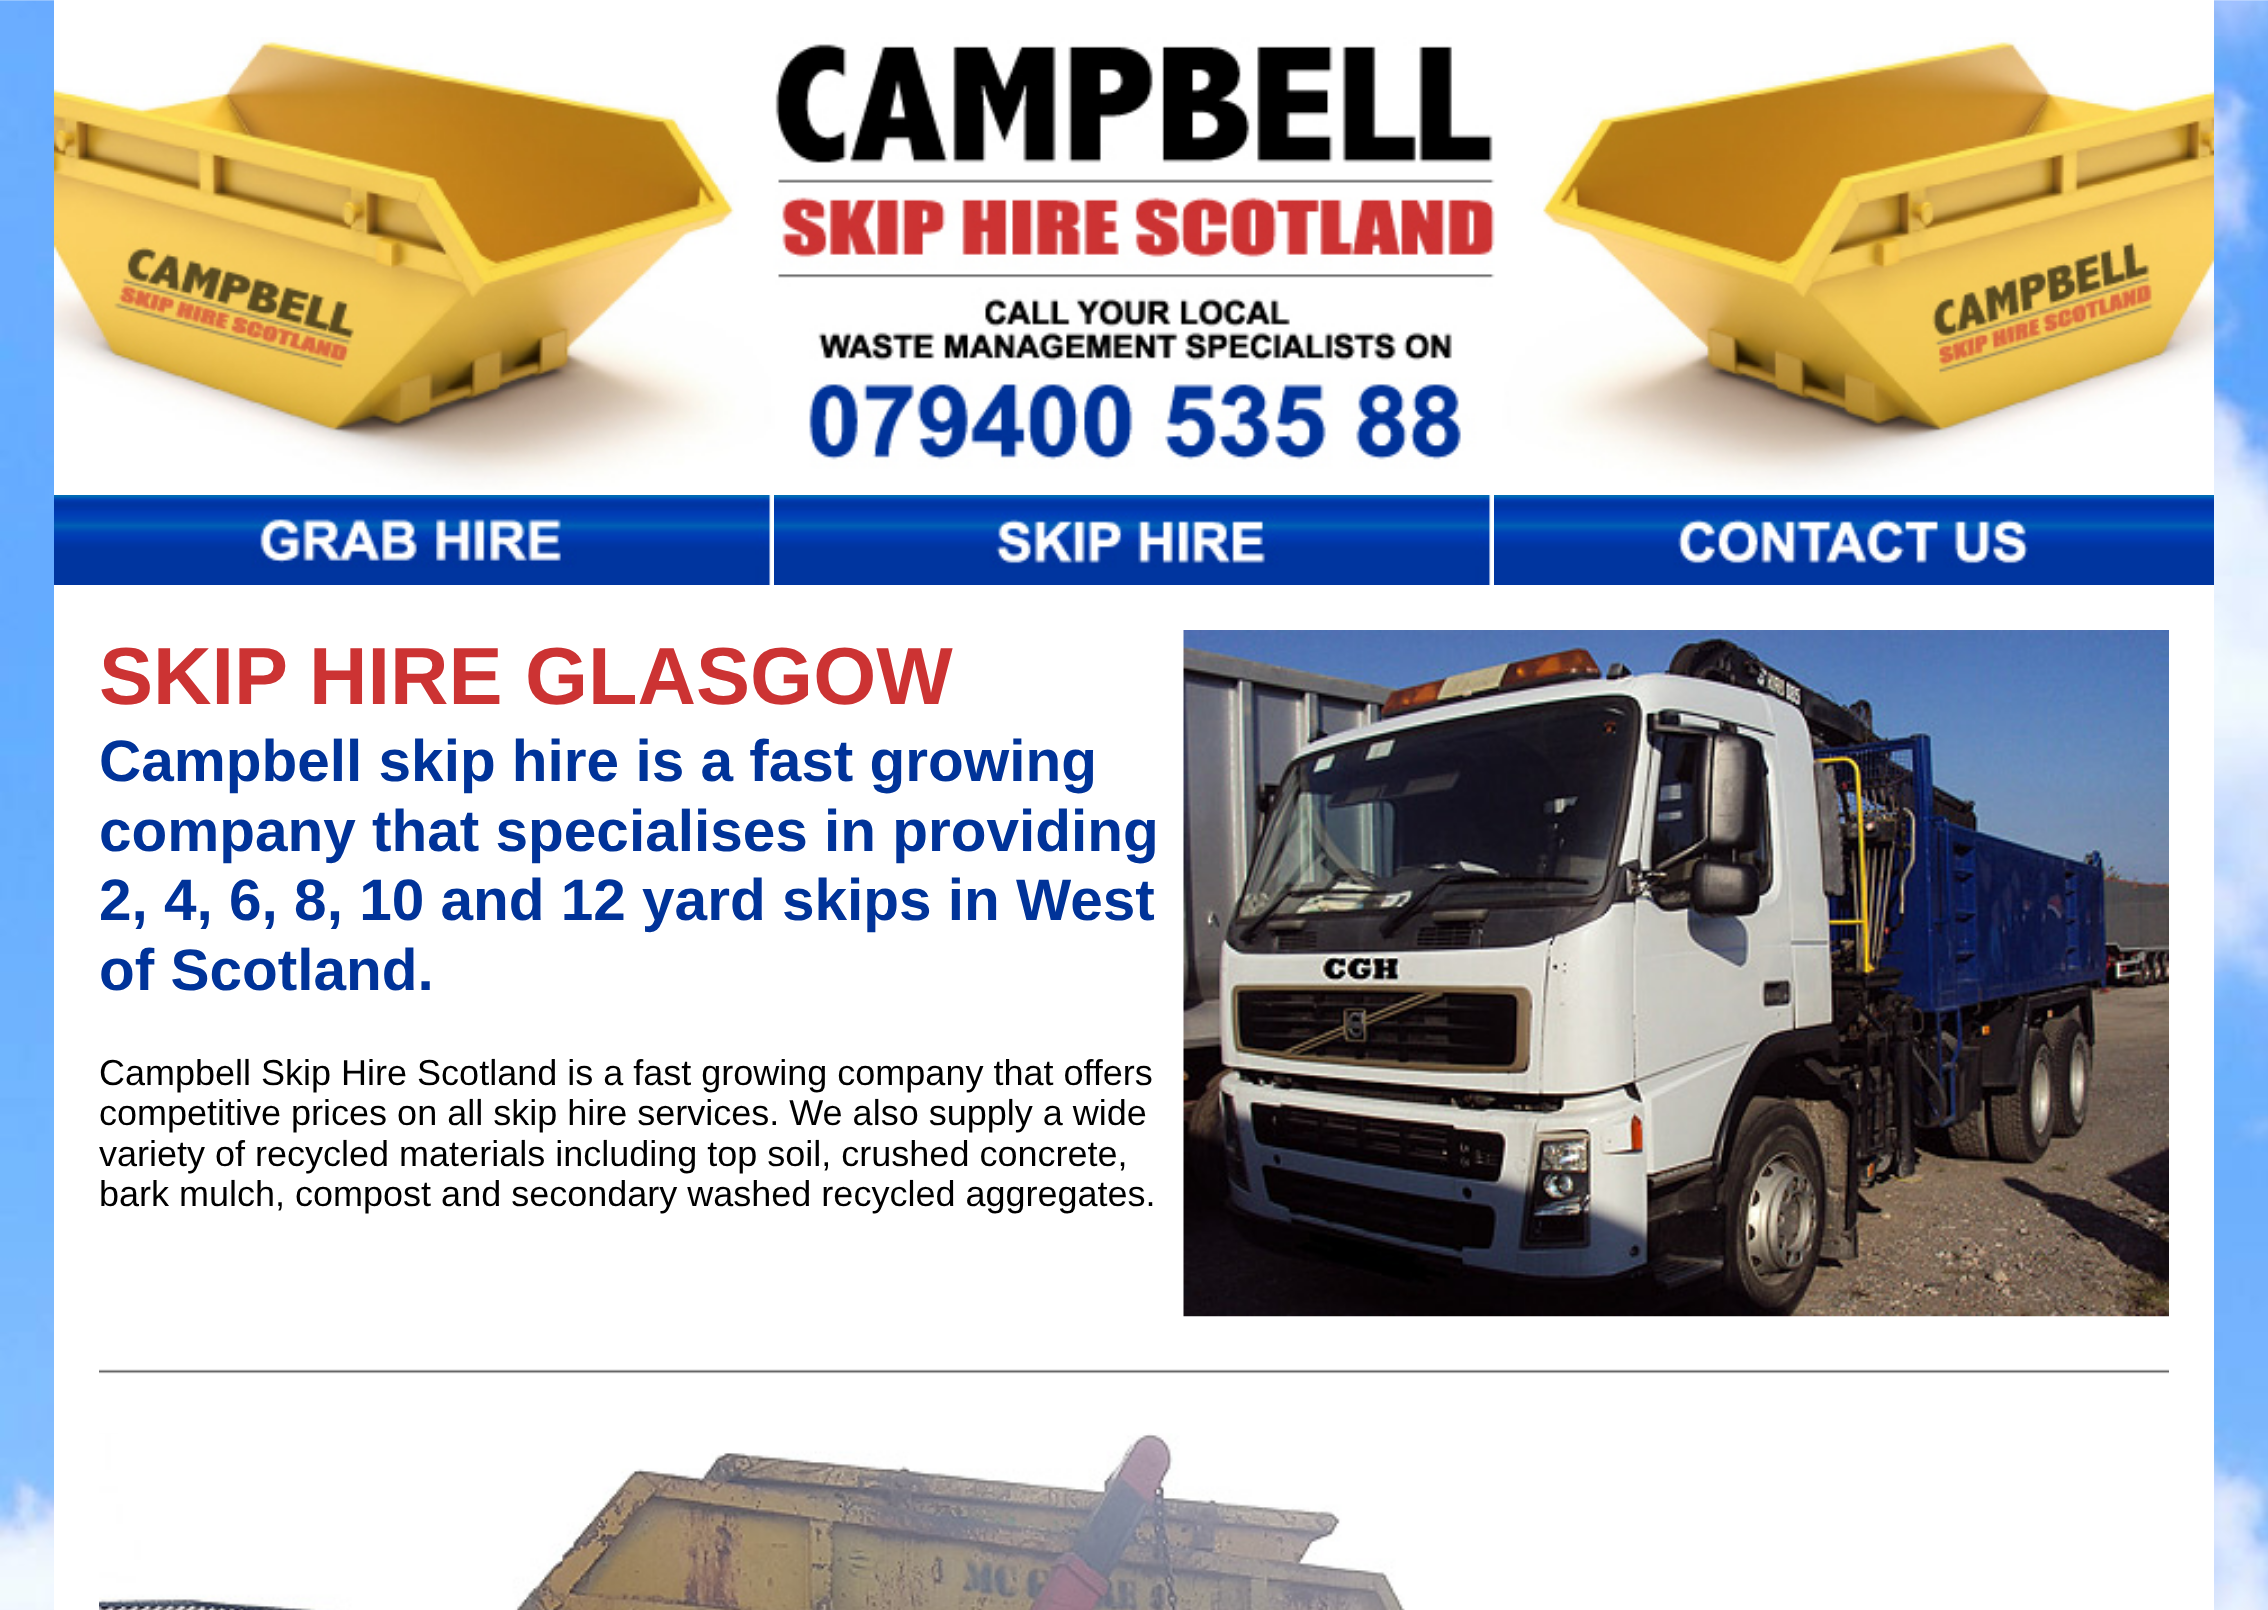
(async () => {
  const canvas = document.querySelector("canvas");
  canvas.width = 2268;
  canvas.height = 1610;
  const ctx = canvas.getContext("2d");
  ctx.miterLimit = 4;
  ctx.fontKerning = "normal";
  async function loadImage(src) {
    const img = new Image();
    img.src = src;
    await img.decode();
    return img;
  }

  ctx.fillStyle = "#ffffff";
  ctx.fillRect(0, 0, 2268, 1610);
  ctx.drawImage(await loadImage("img/1.png"), 0, 0, 2268, 1610);
  ctx.fillRect(54, 0, 2160, 1610);
  ctx.drawImage(await loadImage("img/2.png"), 54, 37, 2160, 453);
  ctx.drawImage(await loadImage("img/3.png"), 54, 495, 717, 90);
  ctx.drawImage(await loadImage("img/4.png"), 774, 495, 717, 90);
  ctx.drawImage(await loadImage("img/5.png"), 1494, 495, 720, 90);
  ctx.drawImage(await loadImage("img/6.png"), 1183, 630, 986, 687);
  ctx.drawImage(await loadImage("img/7.png"), 99, 1369, 2070, 5);
  ctx.drawImage(await loadImage("img/8.png"), 99, 1433, 1306, 177);
  ctx.font = "bold 81px Liberation Sans";
  ctx.fillStyle = "#cc3333";
  ctx.fillText("SKIP HIRE GLASGOW", 99, 704);
  ctx.font = "bold 58.5px Liberation Sans";
  ctx.fillStyle = "#003399";
  for (const [text, x, y] of [
    ["Campbell skip hire is a fast growing", 99, 781],
    ["company that specialises in providing", 99, 851],
    ["2, 4, 6, 8, 10 and 12 yard skips in West", 99, 920],
    ["of Scotland.", 99, 990],
  ]) {
    ctx.fillText(text, x, y);
  }
  ctx.font = "36px Liberation Sans";
  ctx.fillStyle = "#000000";
  for (const [text, x, y] of [
    ["Campbell Skip Hire Scotland is a fast growing company that offers", 99, 1085],
    ["competitive prices on all skip hire services. We also supply a wide", 99, 1125],
    ["variety of recycled materials including top soil, crushed concrete,", 99, 1166],
    ["bark mulch, compost and secondary washed recycled aggregates.", 99, 1206],
  ]) {
    ctx.fillText(text, x, y);
  }
})();
